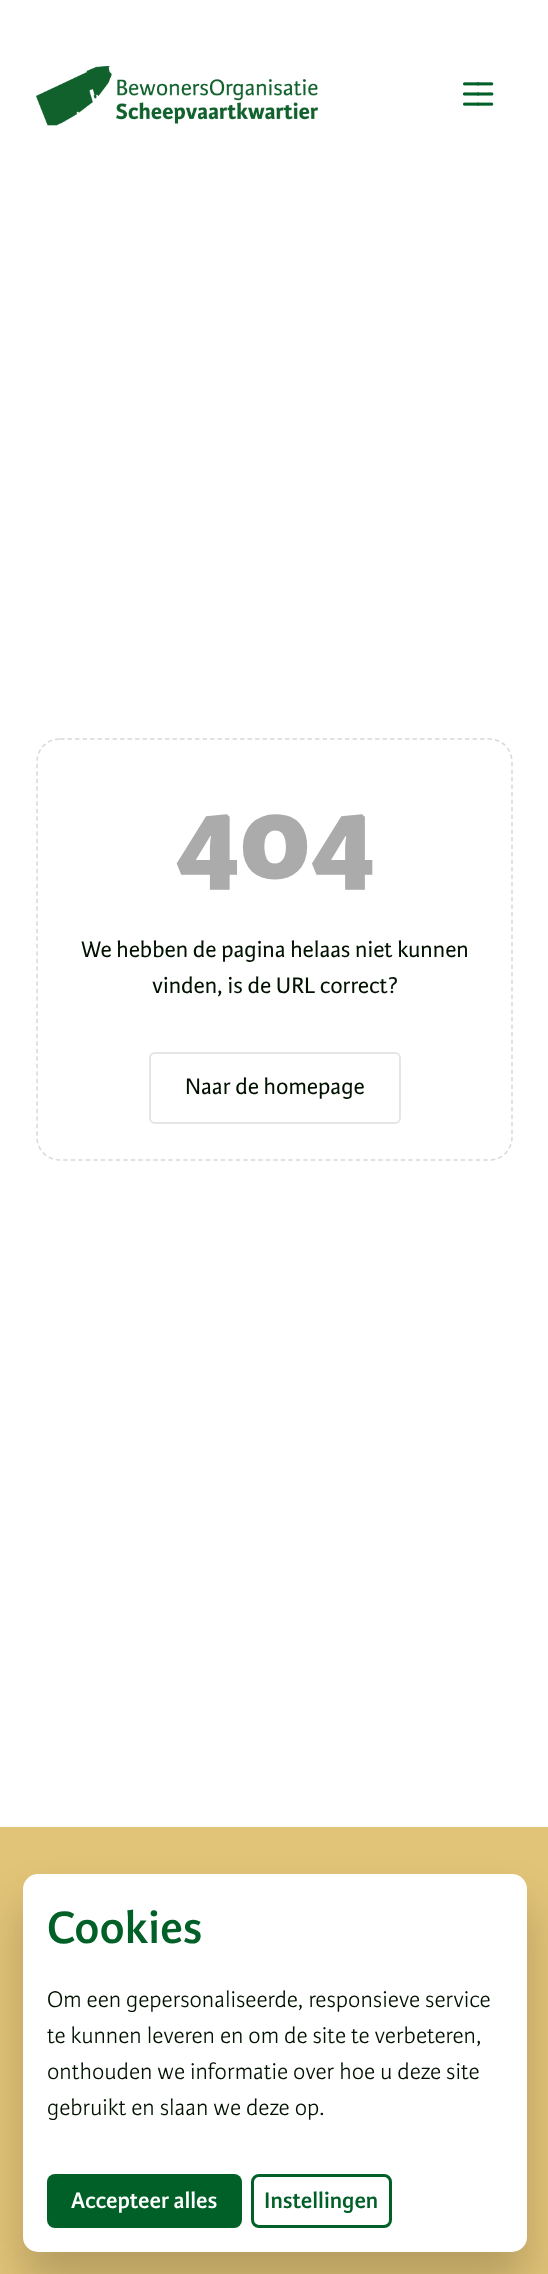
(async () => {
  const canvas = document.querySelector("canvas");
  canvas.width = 548;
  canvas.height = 2274;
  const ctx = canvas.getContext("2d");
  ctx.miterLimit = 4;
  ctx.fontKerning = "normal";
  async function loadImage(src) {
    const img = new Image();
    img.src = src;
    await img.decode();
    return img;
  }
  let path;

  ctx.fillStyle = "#ffffff";
  ctx.fillRect(0, 0, 548, 2274);
  ctx.drawImage(await loadImage("img/1.png"), 36, 66, 282, 60);
  ctx.drawImage(await loadImage("img/2.png"), 462, 82, 32, 24);
  path = new Path2D("M60 739H489C502 739 512 749 512 762V1137C512 1150 502 1160 489 1160H60C47 1160 37 1150 37 1137V762C37 749 47 739 60 739Z");
  ctx.strokeStyle = "#d9d9d9";
  ctx.lineWidth = 1.5;
  ctx.setLineDash([4.5, 3]);
  ctx.stroke(path);
  ctx.beginPath();
  ctx.roundRect(150, 1053, 250, 70, 5);
  ctx.strokeStyle = "#e5e5e5";
  ctx.lineWidth = 2;
  ctx.setLineDash([]);
  ctx.stroke();
  ctx.fillStyle = "#e2c478";
  ctx.fillRect(0, 1827, 548, 447);
  ctx.fillStyle = "rgba(0, 0, 0, 0.2)";
  ctx.filter = "blur(22.5px)";
  ctx.beginPath();
  ctx.roundRect(23, 1904, 504, 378, 15);
  ctx.fill();
  ctx.filter = "none";
  ctx.fillStyle = "#ffffff";
  ctx.beginPath();
  ctx.roundRect(23, 1874, 504, 378, 15);
  ctx.fill();
  ctx.fillStyle = "#006028";
  ctx.beginPath();
  ctx.roundRect(47, 2174, 195, 54, 8);
  ctx.fill();
  ctx.beginPath();
  ctx.roundRect(252.5, 2175.5, 138, 51, 6.5);
  ctx.strokeStyle = "#006028";
  ctx.lineWidth = 3;
  ctx.stroke();
  ctx.font = "800 120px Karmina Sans";
  ctx.fillStyle = "#ababab";
  ctx.fillText("404", 175, 878);
  ctx.font = "24px Karmina Sans";
  ctx.fillStyle = "#001100";
  for (const [text, x, y] of [
    ["We hebben de pagina helaas niet kunnen", 81, 957],
    ["vinden, is de URL correct?", 152, 993],
    ["Naar de homepage", 185, 1094],
  ]) {
    ctx.fillText(text, x, y);
  }
  ctx.font = "600 48px Karmina Sans";
  ctx.fillStyle = "#006028";
  ctx.fillText("Cookies", 47, 1943);
  ctx.font = "300 24px Karmina Sans";
  ctx.fillStyle = "#001100";
  for (const [text, x, y] of [
    ["Om een gepersonaliseerde, responsieve service", 47, 2007],
    ["te kunnen leveren en om de site te verbeteren,", 47, 2043],
    ["onthouden we informatie over hoe u deze site", 47, 2079],
    ["gebruikt en slaan we deze op.", 47, 2115],
  ]) {
    ctx.fillText(text, x, y);
  }
  ctx.font = "600 24px Karmina Sans";
  ctx.fillStyle = "#ffffff";
  ctx.fillText("Accepteer alles", 71, 2208);
  ctx.fillStyle = "#006028";
  ctx.fillText("Instellingen", 264, 2208);
})();
